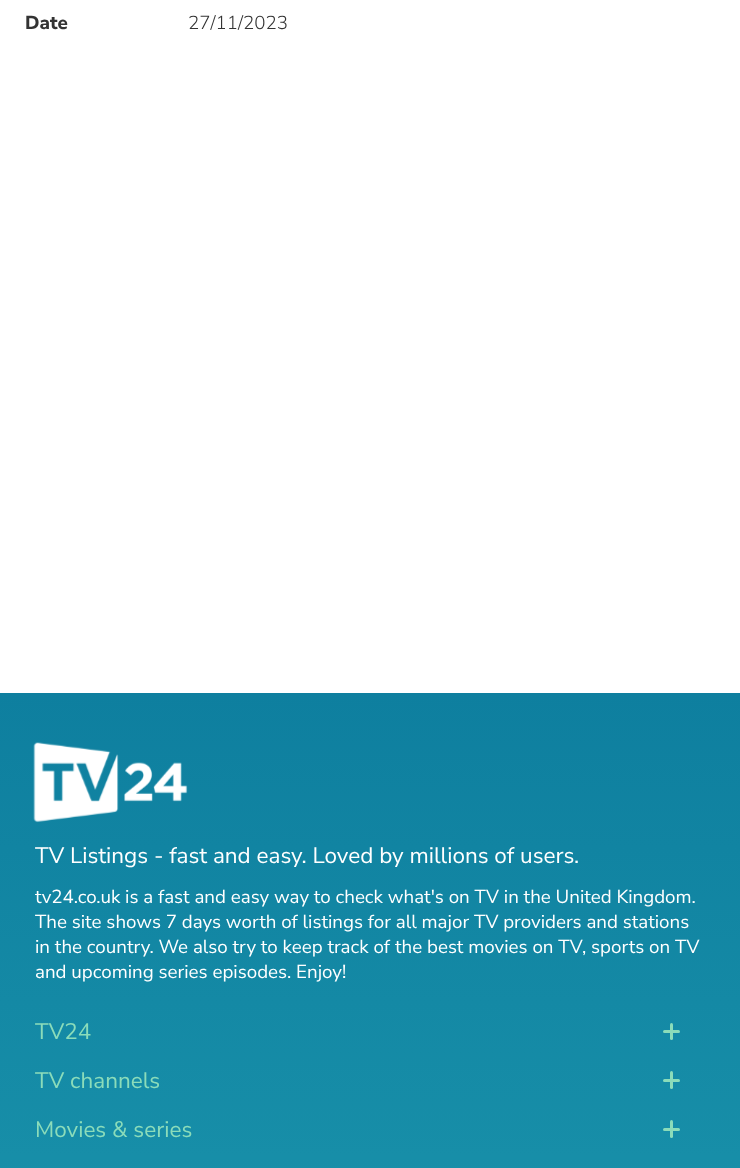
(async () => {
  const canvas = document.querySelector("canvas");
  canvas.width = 740;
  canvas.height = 1168;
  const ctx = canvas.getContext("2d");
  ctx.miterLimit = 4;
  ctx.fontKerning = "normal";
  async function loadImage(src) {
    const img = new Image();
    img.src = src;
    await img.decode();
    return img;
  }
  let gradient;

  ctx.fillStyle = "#ffffff";
  ctx.fillRect(0, 0, 740, 1168);
  gradient = ctx.createLinearGradient(370, 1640, 370, 693);
  gradient.addColorStop(0.02, "#209db1");
  gradient.addColorStop(1, "#0e7f9f");
  ctx.fillStyle = gradient;
  ctx.fillRect(0, 693, 740, 475);
  ctx.drawImage(await loadImage("img/1.png"), 33, 742, 155, 81);
  ctx.fillStyle = "#8bdcba";
  ctx.beginPath();
  ctx.roundRect(663, 1030, 17, 3, 1.5);
  ctx.fill();
  ctx.beginPath();
  ctx.roundRect(670, 1023, 3, 17, 1.5);
  ctx.fill();
  ctx.beginPath();
  ctx.roundRect(663, 1079, 17, 3, 1.5);
  ctx.fill();
  ctx.beginPath();
  ctx.roundRect(670, 1071, 3, 18, 1.5);
  ctx.fill();
  ctx.beginPath();
  ctx.roundRect(663, 1128, 17, 3, 1.5);
  ctx.fill();
  ctx.beginPath();
  ctx.roundRect(670, 1120, 3, 18, 1.5);
  ctx.fill();
  ctx.font = "800 18.75px Nunito Sans";
  ctx.fillStyle = "#333333";
  ctx.fillText("Date", 25, 29);
  ctx.font = "300 18.75px Nunito Sans";
  ctx.fillText("27/11/2023", 188, 29);
  ctx.font = "22.5px Nunito Sans";
  ctx.fillStyle = "#ffffff";
  ctx.fillText("TV Listings - fast and easy. Loved by millions of users.", 35, 863);
  ctx.font = "18.75px Nunito Sans";
  for (const [text, x, y] of [
    ["tv24.co.uk is a fast and easy way to check what's on TV in the United Kingdom.", 35, 903],
    ["The site shows 7 days worth of listings for all major TV providers and stations", 35, 928],
    ["in the country. We also try to keep track of", 35, 953],
    ["the best movies on TV", 395, 953],
    [", sports on TV", 582, 953],
    ["and upcoming series episodes. Enjoy!", 35, 978],
  ]) {
    ctx.fillText(text, x, y);
  }
  ctx.font = "22.5px Nunito Sans";
  ctx.fillStyle = "#8bdcba";
  for (const [text, x, y] of [
    ["TV24", 35, 1039],
    ["TV channels", 35, 1088],
    ["Movies & series", 35, 1137],
  ]) {
    ctx.fillText(text, x, y);
  }
})();
